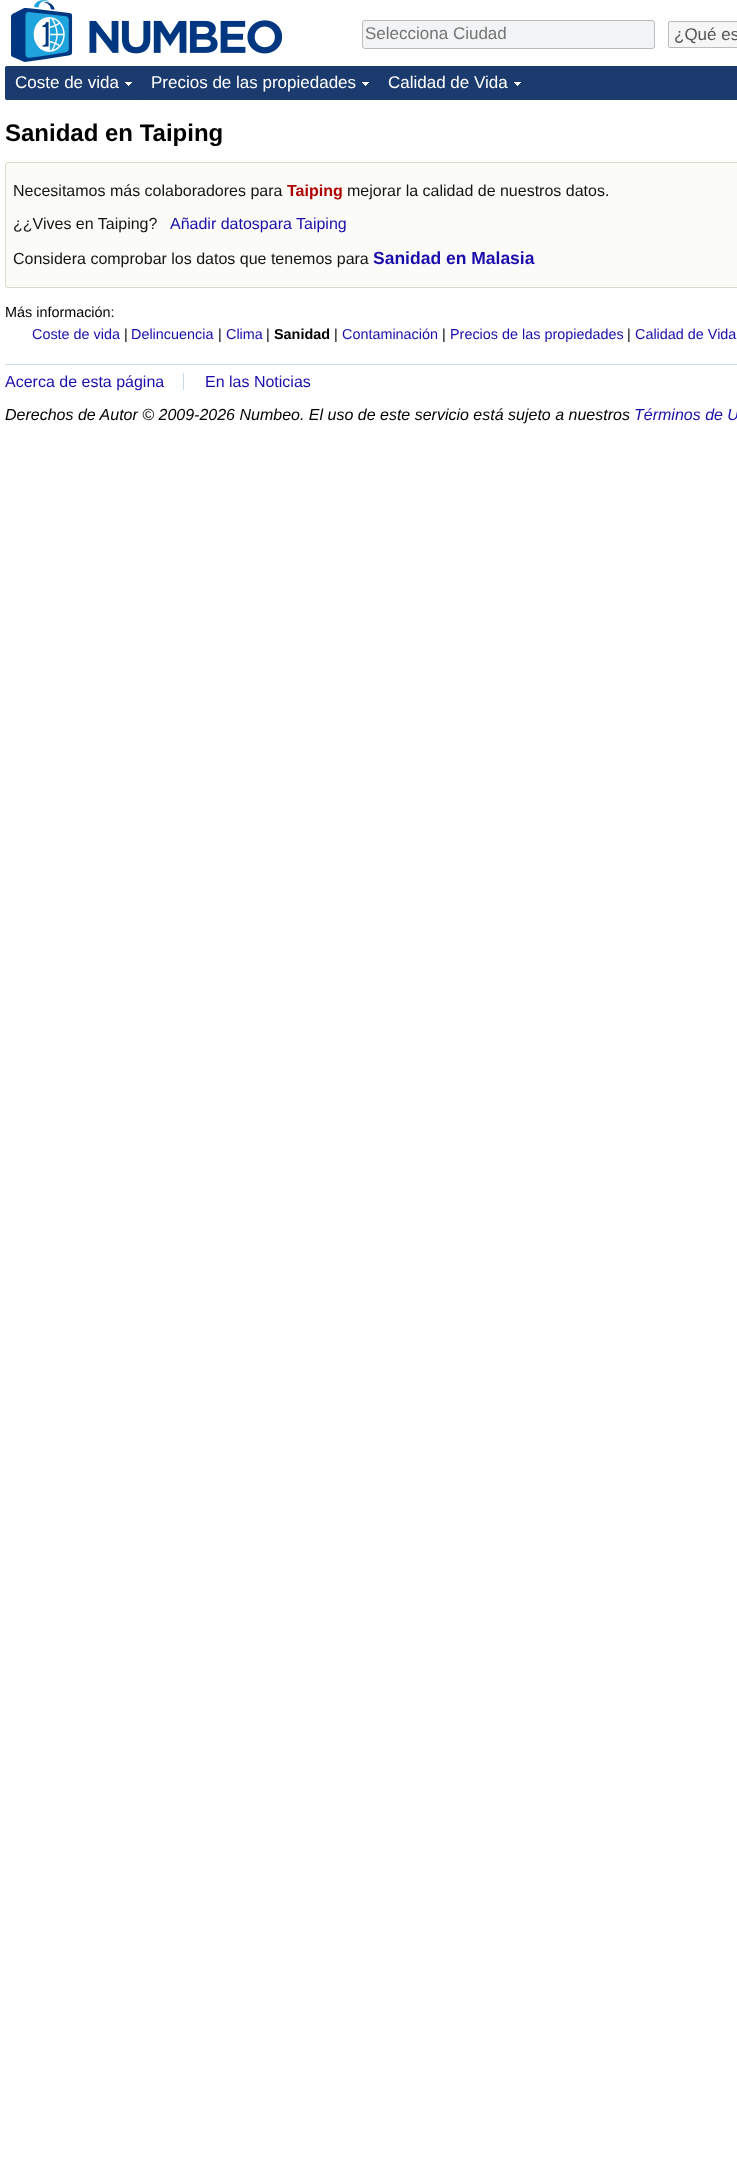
(async () => {
  const canvas = document.querySelector("canvas");
  canvas.width = 737;
  canvas.height = 2157;
  const ctx = canvas.getContext("2d");
  ctx.miterLimit = 4;
  ctx.fontKerning = "normal";
  async function loadImage(src) {
    const img = new Image();
    img.src = src;
    await img.decode();
    return img;
  }

  ctx.fillStyle = "#ffffff";
  ctx.fillRect(0, 0, 737, 2157);
  ctx.drawImage(await loadImage("img/1.png"), 11, 0, 62, 62);
  ctx.drawImage(await loadImage("img/2.png"), 89, 20, 193, 34);
  ctx.fillStyle = "#f1f3f4";
  ctx.beginPath();
  ctx.roundRect(362.5, 20.5, 292, 28, 2.5);
  ctx.fill();
  ctx.strokeStyle = "#bbbbbb";
  ctx.stroke();
  ctx.fillStyle = "#f6f6f6";
  ctx.beginPath();
  ctx.roundRect(668.5, 21.5, 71, 26, 1.5);
  ctx.fill();
  ctx.stroke();
  ctx.fillStyle = "#1b3b6f";
  ctx.beginPath();
  ctx.roundRect(5, 66, 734, 34, 2);
  ctx.fill();
  ctx.beginPath();
  ctx.roundRect(5, 66, 136, 34, 3);
  ctx.fill();
  ctx.drawImage(await loadImage("img/3.png"), 125, 82, 7, 4);
  ctx.drawImage(await loadImage("img/3.png"), 362, 82, 7, 4);
  ctx.drawImage(await loadImage("img/3.png"), 514, 82, 7, 4);
  ctx.fillStyle = "#fbfbf8";
  ctx.beginPath();
  ctx.roundRect(5.5, 162.5, 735, 125, 2.5);
  ctx.fill();
  ctx.strokeStyle = "#dcdacb";
  ctx.stroke();
  ctx.fillStyle = "#c5dbec";
  ctx.fillRect(5, 364, 732, 1);
  ctx.fillRect(183, 373, 1, 17);
  ctx.font = "17px Liberation Sans";
  ctx.fillStyle = "#757575";
  ctx.fillText("Selecciona Ciudad", 365, 39);
  ctx.fillStyle = "#555555";
  ctx.fillText("¿Qué es", 674, 40);
  ctx.fillStyle = "#ffffff";
  for (const [text, x, y] of [
    ["Coste de vida", 15, 88],
    ["Precios de las propiedades", 151, 88],
    ["Calidad de Vida", 388, 88],
  ]) {
    ctx.fillText(text, x, y);
  }
  ctx.font = "bold 24px Liberation Sans";
  ctx.fillStyle = "#000000";
  ctx.fillText("Sanidad en Taiping", 5, 141);
  ctx.font = "16px Liberation Sans";
  ctx.fillStyle = "#141412";
  ctx.fillText("Necesitamos más colaboradores para", 13, 196);
  ctx.font = "bold 16px Liberation Sans";
  ctx.fillStyle = "#af0000";
  ctx.fillText("Taiping", 287, 196);
  ctx.font = "16px Liberation Sans";
  ctx.fillStyle = "#141412";
  ctx.fillText("mejorar la calidad de nuestros datos.", 347, 196);
  ctx.fillText("¿¿Vives en Taiping?", 13, 229);
  ctx.fillStyle = "#1a0dab";
  ctx.fillText("Añadir datospara Taiping", 170, 229);
  ctx.fillStyle = "#141412";
  ctx.fillText("Considera comprobar los datos que tenemos para", 13, 264);
  ctx.font = "bold 17.5px Liberation Sans";
  ctx.fillStyle = "#1a0dab";
  ctx.fillText("Sanidad en Malasia", 373, 264);
  ctx.font = "14.4px Liberation Sans";
  ctx.fillStyle = "#000000";
  ctx.fillText("Más información:", 5, 317);
  ctx.fillStyle = "#1a0dab";
  ctx.fillText("Coste de vida", 32, 339);
  ctx.fillStyle = "#000000";
  ctx.fillText("|", 124, 339);
  ctx.fillStyle = "#1a0dab";
  ctx.fillText("Delincuencia", 131, 339);
  ctx.fillStyle = "#000000";
  ctx.fillText("|", 218, 339);
  ctx.fillStyle = "#1a0dab";
  ctx.fillText("Clima", 226, 339);
  ctx.fillStyle = "#000000";
  ctx.fillText("|", 266, 339);
  ctx.font = "bold 14.4px Liberation Sans";
  ctx.fillText("Sanidad", 274, 339);
  ctx.font = "14.4px Liberation Sans";
  ctx.fillText("|", 334, 339);
  ctx.fillStyle = "#1a0dab";
  ctx.fillText("Contaminación", 342, 339);
  ctx.fillStyle = "#000000";
  ctx.fillText("|", 442, 339);
  ctx.fillStyle = "#1a0dab";
  ctx.fillText("Precios de las propiedades", 450, 339);
  ctx.fillStyle = "#000000";
  ctx.fillText("|", 627, 339);
  ctx.fillStyle = "#1a0dab";
  ctx.fillText("Calidad de Vida", 635, 339);
  ctx.font = "16px Liberation Sans";
  ctx.fillText("Acerca de esta página", 5, 387);
  ctx.fillText("En las Noticias", 205, 387);
  ctx.font = "italic 16px Liberation Sans";
  ctx.fillStyle = "#000000";
  ctx.fillText("Derechos de Autor © 2009-2026 Numbeo. El uso de este servicio está sujeto a nuestros", 5, 420);
  ctx.fillStyle = "#1a0dab";
  ctx.fillText("Términos de U", 634, 420);
})();
